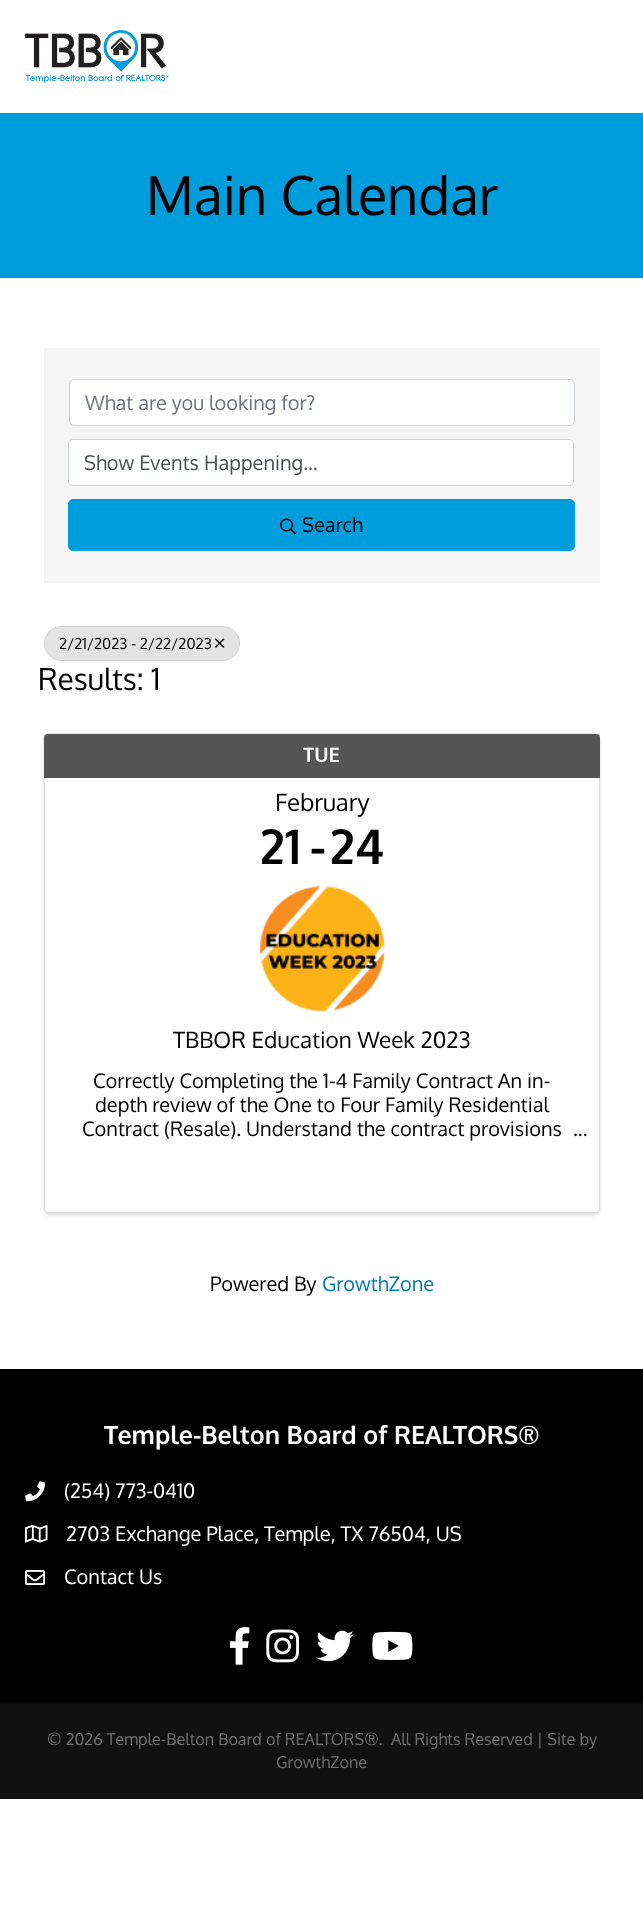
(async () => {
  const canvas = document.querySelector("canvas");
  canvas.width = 643;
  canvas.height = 1926;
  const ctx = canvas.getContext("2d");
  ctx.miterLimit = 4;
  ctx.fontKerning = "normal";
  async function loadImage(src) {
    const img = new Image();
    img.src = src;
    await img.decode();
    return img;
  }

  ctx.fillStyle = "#ffffff";
  ctx.fillRect(0, 0, 643, 1926);
  ctx.drawImage(await loadImage("img/1.png"), 25, 30, 144, 53);
  ctx.fillStyle = "#009ddc";
  ctx.fillRect(0, 113, 643, 165);
  ctx.fillStyle = "#f5f5f5";
  ctx.fillRect(44, 348, 556, 235);
  ctx.fillStyle = "#ffffff";
  ctx.beginPath();
  ctx.roundRect(69.5, 379.5, 505, 46, 4.5);
  ctx.fill();
  ctx.strokeStyle = "#ced4da";
  ctx.stroke();
  ctx.beginPath();
  ctx.roundRect(68.5, 439.5, 505, 46, 4.5);
  ctx.fill();
  ctx.stroke();
  ctx.fillStyle = "#009ddc";
  ctx.beginPath();
  ctx.roundRect(68.5, 499.5, 506, 51, 4.5);
  ctx.fill();
  ctx.strokeStyle = "#009ddc";
  ctx.stroke();
  ctx.drawImage(await loadImage("img/2.png"), 280, 518, 16, 17);
  ctx.fillStyle = "#e3e3e3";
  ctx.beginPath();
  ctx.roundRect(44, 626, 196, 35, 17.5);
  ctx.fill();
  ctx.beginPath();
  ctx.roundRect(44.5, 626.5, 195, 34, 17);
  ctx.strokeStyle = "rgba(0, 0, 0, 0.07)";
  ctx.stroke();
  ctx.drawImage(await loadImage("img/3.png"), 215, 638, 10, 10);
  ctx.fillStyle = "rgba(0, 0, 0, 0.15)";
  ctx.filter = "blur(2px)";
  ctx.beginPath();
  ctx.roundRect(44, 735, 556, 480, 5);
  ctx.fill();
  ctx.filter = "none";
  ctx.fillStyle = "#ffffff";
  ctx.beginPath();
  ctx.roundRect(44, 733, 556, 480, 5);
  ctx.fill();
  ctx.beginPath();
  ctx.roundRect(44.5, 733.5, 555, 479, 4.5);
  ctx.strokeStyle = "rgba(0, 0, 0, 0.12)";
  ctx.stroke();
  ctx.fillStyle = "#555555";
  ctx.beginPath();
  ctx.roundRect(44, 734, 556, 44, [4, 4, 0, 0]);
  ctx.fill();
  ctx.drawImage(await loadImage("img/4.png"), 260, 886, 125, 126);
  ctx.fillStyle = "#000000";
  ctx.fillRect(0, 1369, 643, 334);
  ctx.drawImage(await loadImage("img/5.png"), 25, 1481, 20, 21);
  ctx.drawImage(await loadImage("img/6.png"), 25, 1525, 23, 18);
  ctx.drawImage(await loadImage("img/7.png"), 25, 1570, 20, 15);
  ctx.drawImage(await loadImage("img/8.png"), 230, 1627, 20, 38);
  ctx.drawImage(await loadImage("img/9.png"), 266, 1629, 34, 34);
  ctx.drawImage(await loadImage("img/10.png"), 316, 1630, 38, 32);
  ctx.drawImage(await loadImage("img/11.png"), 372, 1631, 41, 29);
  ctx.fillStyle = "#111111";
  ctx.fillRect(0, 1703, 643, 96);
  ctx.font = "53.75px Oxygen";
  ctx.fillStyle = "#000000";
  ctx.fillText("Main Calendar", 146, 215);
  ctx.font = "20px Oxygen";
  ctx.fillStyle = "#6c757d";
  ctx.fillText("What are you looking for?", 85, 410);
  ctx.fillStyle = "#495057";
  ctx.fillText("Show Events Happening...", 84, 470);
  ctx.fillStyle = "#000000";
  ctx.fillText("Search", 302, 532);
  ctx.font = "15px Oxygen";
  ctx.fillText("2/21/2023 - 2/22/2023", 59, 649);
  ctx.font = "30px Oxygen";
  ctx.fillText("Results: 1", 38, 690);
  ctx.font = "bold 20px Oxygen";
  ctx.fillStyle = "#ffffff";
  ctx.fillText("TUE", 303, 762);
  ctx.font = "24px Oxygen";
  ctx.fillStyle = "#000000";
  ctx.fillText("February", 275, 811);
  ctx.font = "bold 48px Oxygen";
  for (const [text, x, y] of [
    ["21", 260, 864],
    ["-", 310, 864],
    ["24", 330, 864],
  ]) {
    ctx.fillText(text, x, y);
  }
  ctx.font = "22.5px Oxygen";
  ctx.fillText("TBBOR Education Week 2023", 173, 1048);
  ctx.font = "20px Oxygen";
  for (const [text, x, y] of [
    ["Correctly Completing the 1-4 Family Contract An in-", 93, 1088],
    ["depth review of the One to Four Family Residential", 95, 1112],
    ["Contract (Resale). Understand the contract provisions", 82, 1136],
    ["...", 573, 1136],
    ["Powered By", 210, 1291],
  ]) {
    ctx.fillText(text, x, y);
  }
  ctx.fillStyle = "#007eb0";
  ctx.fillText("GrowthZone", 322, 1291);
  ctx.font = "bold 25px Oxygen";
  ctx.fillStyle = "#ffffff";
  ctx.fillText("Temple-Belton Board of REALTORS®", 104, 1444);
  ctx.font = "20px Oxygen";
  for (const [text, x, y] of [
    ["(254) 773-0410", 64, 1498],
    ["2703 Exchange Place, Temple, TX 76504, US", 66, 1541],
    ["Contact Us", 64, 1584],
  ]) {
    ctx.fillText(text, x, y);
  }
  ctx.font = "16.25px Oxygen";
  ctx.fillStyle = "#707070";
  for (const [text, x, y] of [
    ["© 2026 Temple-Belton Board of REALTORS®.", 47, 1745],
    ["All Rights Reserved | Site by", 391, 1745],
    ["GrowthZone", 276, 1768],
  ]) {
    ctx.fillText(text, x, y);
  }
})();
